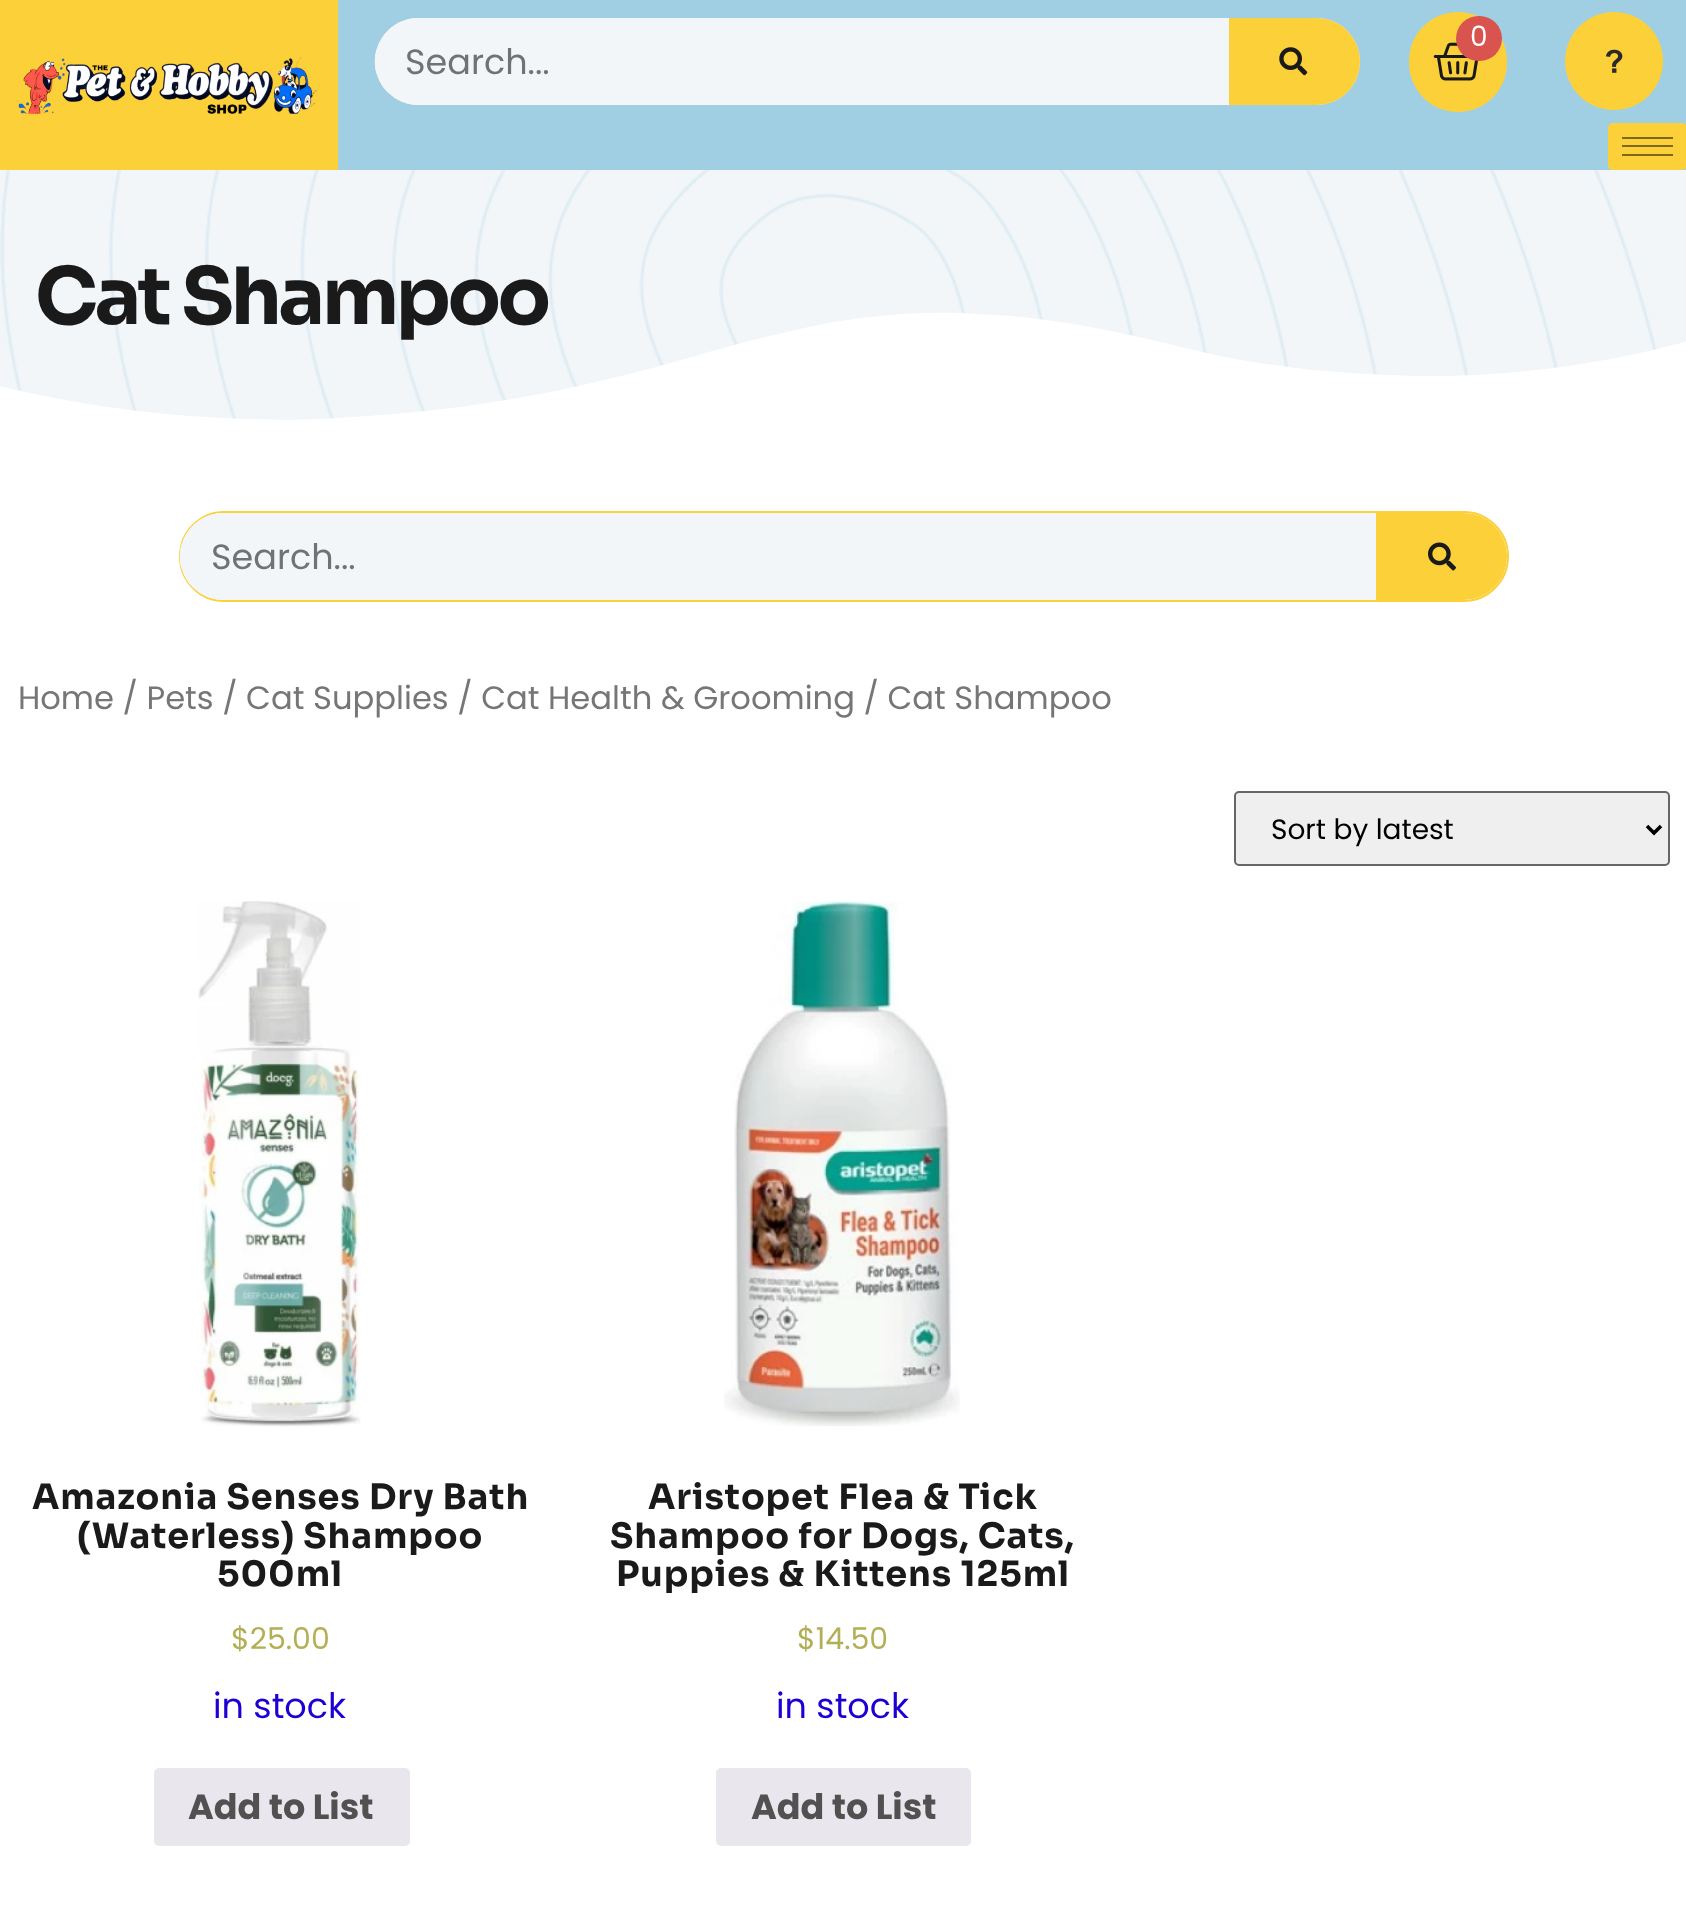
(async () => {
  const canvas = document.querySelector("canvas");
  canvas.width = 1686;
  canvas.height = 1908;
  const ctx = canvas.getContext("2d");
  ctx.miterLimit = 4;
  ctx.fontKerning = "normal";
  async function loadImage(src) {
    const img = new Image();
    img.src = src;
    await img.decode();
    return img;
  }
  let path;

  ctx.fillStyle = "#ffffff";
  ctx.fillRect(0, 0, 1686, 1908);
  ctx.fillStyle = "#a0cfe3";
  ctx.fillRect(338, 0, 1348, 170);
  ctx.fillStyle = "#fcd039";
  ctx.fillRect(0, 0, 338, 170);
  ctx.drawImage(await loadImage("img/1.png"), 18, 57, 299, 57);
  ctx.beginPath();
  ctx.roundRect(1409, 12, 98, 100, 49);
  ctx.fill();
  ctx.drawImage(await loadImage("img/2.png"), 1433, 42, 45, 39);
  ctx.fillStyle = "#d9534f";
  ctx.beginPath();
  ctx.roundRect(1456, 16, 46, 45, 22.5);
  ctx.fill();
  ctx.fillStyle = "#fcd039";
  ctx.beginPath();
  ctx.arc(1614, 61, 49, 0, Math.PI * 2);
  ctx.fill();
  ctx.drawImage(await loadImage("img/3.png"), 1606, 49, 17, 24);
  ctx.fillStyle = "#f2f6f9";
  ctx.beginPath();
  ctx.roundRect(375, 18, 985, 87, 43.5);
  ctx.fill();
  ctx.beginPath();
  ctx.roundRect(375, 18, 854, 87, [43.5, 18, 18, 43.5]);
  ctx.fill();
  path = new Path2D("M418 18C414 18 410 19 405 20H1211C1220 20 1227 27 1227 36V87C1227 96 1220 103 1211 103H405C410 104 414 105 418 105H1211C1221 105 1229 97 1229 87V36C1229 26 1221 18 1211 18ZM377 75C374 66 374 57 377 48Z");
  ctx.fill(path, "evenodd");
  ctx.fillStyle = "#fcd039";
  ctx.beginPath();
  ctx.roundRect(1229, 18, 131, 87, [0, 43.5, 43.5, 0]);
  ctx.fill();
  ctx.drawImage(await loadImage("img/4.png"), 1279, 47, 29, 29);
  ctx.beginPath();
  ctx.roundRect(1608, 123, 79, 47, 5);
  ctx.fill();
  for (const [x, y, w, h, color] of [
    [1622, 137, 51, 2, "#7e681d"],
    [1622, 145, 51, 2, "#7e681d"],
    [1622, 154, 51, 2, "#7e681d"],
    [0, 170, 1686, 250, "#f2f6f9"],
  ]) {
    ctx.fillStyle = color;
    ctx.fillRect(x, y, w, h);
  }
  ctx.drawImage(await loadImage("img/5.png"), 0, 170, 1657, 249);
  ctx.beginPath();
  ctx.roundRect(180, 512, 1328, 89, 44.5);
  ctx.strokeStyle = "#fcd039";
  ctx.lineWidth = 2;
  ctx.stroke();
  ctx.beginPath();
  ctx.roundRect(180, 513, 1327, 87, 43.5);
  ctx.fill();
  ctx.beginPath();
  ctx.roundRect(180, 513, 1196, 87, [43.5, 18, 18, 43.5]);
  ctx.fill();
  path = new Path2D("M224 513C219 513 215 514 210 515H1358C1367 515 1374 522 1374 531V582C1374 591 1367 598 1358 598H210C215 599 219 600 224 600H1358C1368 600 1376 592 1376 582V531C1376 521 1368 513 1358 513ZM182 570C179 561 179 552 182 543Z");
  ctx.fill(path, "evenodd");
  ctx.fillStyle = "#fcd039";
  ctx.beginPath();
  ctx.roundRect(1376, 513, 131, 87, [0, 43.5, 43.5, 0]);
  ctx.fill();
  ctx.drawImage(await loadImage("img/6.png"), 1428, 542, 28, 29);
  ctx.fillStyle = "#efefef";
  ctx.beginPath();
  ctx.roundRect(1235, 792, 434, 73, 4);
  ctx.fill();
  ctx.strokeStyle = "#666666";
  ctx.stroke();
  path = new Path2D("M1647 826L1654 833L1661 826");
  ctx.strokeStyle = "#000000";
  ctx.lineWidth = 3.5;
  ctx.stroke(path);
  ctx.drawImage(await loadImage("img/7.png"), 198, 901, 163, 526);
  ctx.fillStyle = "#e9e6ed";
  ctx.beginPath();
  ctx.roundRect(154, 1768, 256, 78, 5);
  ctx.fill();
  ctx.drawImage(await loadImage("img/8.png"), 724, 901, 236, 526);
  ctx.beginPath();
  ctx.roundRect(716, 1768, 255, 78, 5);
  ctx.fill();
  ctx.font = "28px Poppins";
  ctx.fillStyle = "#ffffff";
  ctx.fillText("0", 1470, 46);
  ctx.font = "35px Poppins";
  ctx.fillStyle = "#707273";
  ctx.fillText("Search...", 405, 74);
  ctx.letterSpacing = "-3.5px";
  ctx.font = "bold 78.75px Sora";
  ctx.fillStyle = "#1a1a1a";
  ctx.fillText("Cat Shampoo", 35, 324);
  ctx.save();
  ctx.beginPath();
  ctx.rect(0, 312, 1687, 112);
  ctx.clip();
  ctx.fillStyle = "#ffffff";
  path = new Path2D("M353 417C453 411 550 397 678 361C728 346 808 325 848 320C888 314 937 311 975 314C993 315 1014 315 1060 322C1106 329 1158 341 1194 350C1264 368 1355 375 1421 376C1567 378 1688 341 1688 341V425H-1V386C-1 386 86 408 178 415C270 422 313 420 353 417Z");
  ctx.fill(path);
  ctx.restore();
  ctx.letterSpacing = "0px";
  ctx.font = "35px Poppins";
  ctx.fillStyle = "#707273";
  ctx.fillText("Search...", 211, 569);
  ctx.font = "32.2px Poppins";
  ctx.fillStyle = "#767676";
  ctx.fillText("Home / Pets / Cat Supplies / Cat Health & Grooming / Cat Shampoo", 18, 709);
  ctx.font = "28px Poppins";
  ctx.fillStyle = "#000000";
  ctx.fillText("Sort by latest", 1271, 839);
  ctx.letterSpacing = "0.9px";
  ctx.font = "bold 35px Sora";
  ctx.fillStyle = "#1a1a1a";
  for (const [text, x, y] of [
    ["Amazonia Senses Dry Bath", 32, 1509],
    ["(Waterless) Shampoo", 77, 1548],
    ["500ml", 217, 1586],
  ]) {
    ctx.fillText(text, x, y);
  }
  ctx.letterSpacing = "0px";
  ctx.font = "30px Poppins";
  ctx.fillStyle = "#b3af54";
  ctx.fillText("$25.00", 231, 1649);
  ctx.font = "35px Poppins";
  ctx.fillStyle = "#1d00d5";
  ctx.fillText("in stock", 213, 1718);
  ctx.font = "bold 35px Poppins";
  ctx.fillStyle = "#515151";
  ctx.fillText("Add to List", 188, 1819);
  ctx.letterSpacing = "0.9px";
  ctx.font = "bold 35px Sora";
  ctx.fillStyle = "#1a1a1a";
  for (const [text, x, y] of [
    ["Aristopet Flea & Tick", 648, 1509],
    ["Shampoo for Dogs, Cats,", 610, 1548],
    ["Puppies & Kittens 125ml", 616, 1586],
  ]) {
    ctx.fillText(text, x, y);
  }
  ctx.letterSpacing = "0px";
  ctx.font = "30px Poppins";
  ctx.fillStyle = "#b3af54";
  ctx.fillText("$14.50", 797, 1649);
  ctx.font = "35px Poppins";
  ctx.fillStyle = "#1d00d5";
  ctx.fillText("in stock", 776, 1718);
  ctx.font = "bold 35px Poppins";
  ctx.fillStyle = "#515151";
  ctx.fillText("Add to List", 751, 1819);
})();
